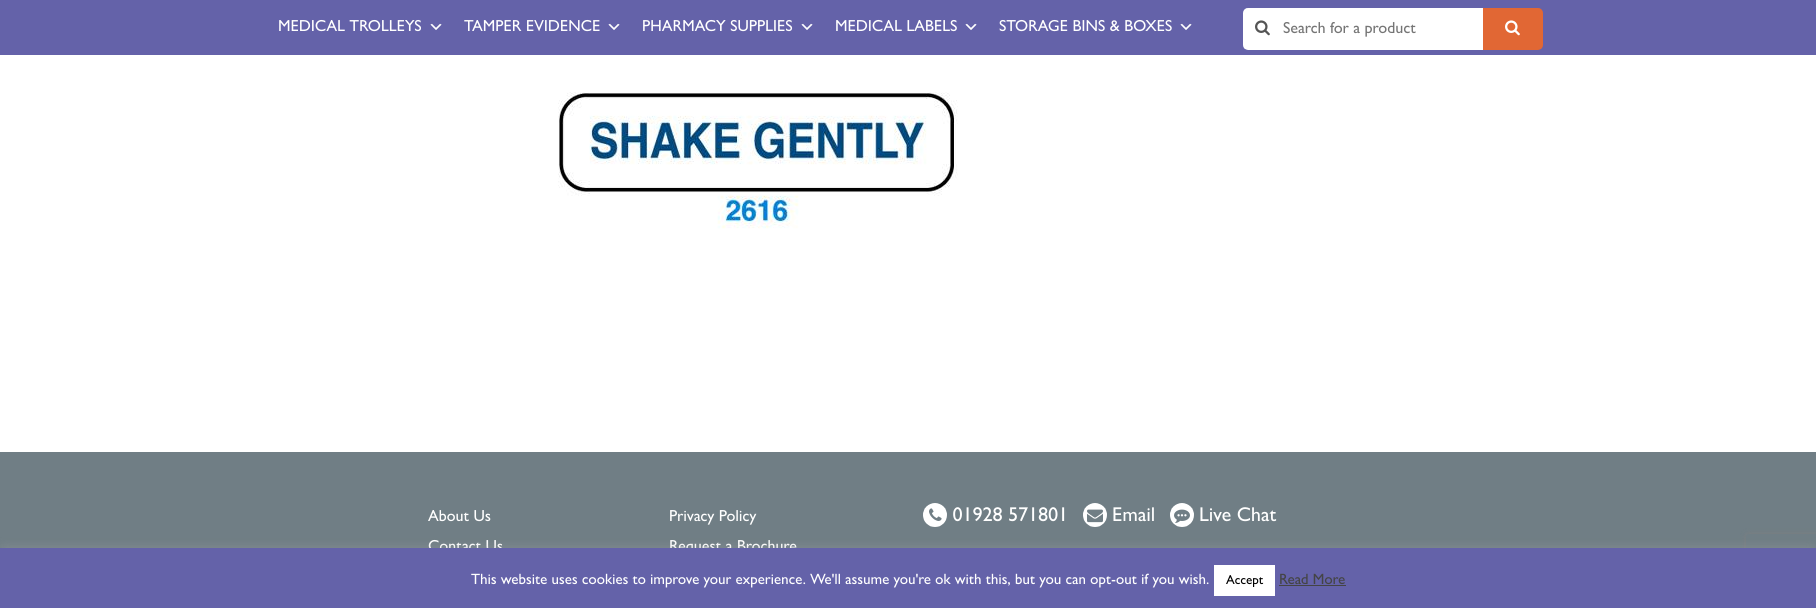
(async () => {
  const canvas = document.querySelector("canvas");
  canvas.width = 1816;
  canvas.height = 608;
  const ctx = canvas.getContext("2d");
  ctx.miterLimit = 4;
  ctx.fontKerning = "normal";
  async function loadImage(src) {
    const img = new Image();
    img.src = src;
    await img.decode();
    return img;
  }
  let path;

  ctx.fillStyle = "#ffffff";
  ctx.fillRect(0, 0, 1816, 608);
  ctx.fillStyle = "#6462a9";
  ctx.fillRect(0, 0, 1816, 55);
  ctx.drawImage(await loadImage("img/1.png"), 279, 19, 142, 13);
  ctx.drawImage(await loadImage("img/2.png"), 430, 23, 12, 7);
  ctx.drawImage(await loadImage("img/3.png"), 464, 19, 136, 13);
  ctx.drawImage(await loadImage("img/2.png"), 608, 23, 12, 7);
  ctx.drawImage(await loadImage("img/4.png"), 643, 19, 150, 13);
  ctx.drawImage(await loadImage("img/2.png"), 801, 23, 12, 7);
  ctx.drawImage(await loadImage("img/5.png"), 836, 19, 121, 13);
  ctx.drawImage(await loadImage("img/2.png"), 965, 23, 12, 7);
  ctx.drawImage(await loadImage("img/6.png"), 999, 19, 173, 13);
  ctx.drawImage(await loadImage("img/2.png"), 1180, 23, 12, 7);
  ctx.fillStyle = "#ffffff";
  ctx.beginPath();
  ctx.roundRect(1243, 8, 240, 42, [5, 0, 0, 5]);
  ctx.fill();
  ctx.drawImage(await loadImage("img/7.png"), 1283, 22, 133, 15);
  ctx.fillStyle = "#e16734";
  ctx.beginPath();
  ctx.roundRect(1483, 8, 60, 42, [0, 5, 5, 0]);
  ctx.fill();
  ctx.drawImage(await loadImage("img/8.png"), 1505, 20, 15, 16);
  ctx.drawImage(await loadImage("img/9.png"), 1255, 20, 15, 16);
  ctx.drawImage(await loadImage("img/10.png"), 558, 92, 400, 137);
  ctx.fillStyle = "#707e85";
  ctx.fillRect(0, 452, 1816, 96);
  ctx.drawImage(await loadImage("img/11.png"), 428, 510, 63, 12);
  ctx.drawImage(await loadImage("img/12.png"), 670, 510, 87, 15);
  ctx.drawImage(await loadImage("img/13.png"), 428, 539, 75, 9);
  ctx.drawImage(await loadImage("img/14.png"), 670, 540, 127, 8);
  ctx.fillStyle = "#ffffff";
  ctx.beginPath();
  ctx.arc(935, 515, 12, 0, Math.PI * 2);
  ctx.fill();
  ctx.drawImage(await loadImage("img/15.png"), 929, 508, 13, 13);
  ctx.drawImage(await loadImage("img/16.png"), 953, 507, 112, 15);
  ctx.beginPath();
  ctx.arc(1095, 515, 12, 0, Math.PI * 2);
  ctx.fill();
  ctx.drawImage(await loadImage("img/17.png"), 1087, 509, 16, 14);
  ctx.drawImage(await loadImage("img/18.png"), 1113, 507, 41, 15);
  ctx.beginPath();
  ctx.arc(1182, 515, 12, 0, Math.PI * 2);
  ctx.fill();
  ctx.drawImage(await loadImage("img/19.png"), 1174, 509, 16, 14);
  ctx.drawImage(await loadImage("img/20.png"), 1200, 507, 77, 15);
  ctx.save();
  path = new Path2D("M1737 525H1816V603H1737ZM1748 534H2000C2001 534 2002 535 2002 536V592C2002 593 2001 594 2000 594H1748C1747 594 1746 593 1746 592V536C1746 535 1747 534 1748 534Z");
  ctx.clip(path, "evenodd");
  ctx.fillStyle = "#808080";
  ctx.filter = "blur(2.5px)";
  ctx.beginPath();
  ctx.roundRect(1746, 534, 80, 60, 2);
  ctx.fill();
  ctx.filter = "none";
  ctx.restore();
  ctx.fillStyle = "rgba(172, 171, 171, 0.3)";
  ctx.filter = "blur(5px)";
  ctx.beginPath();
  ctx.rect(0, 547, 1816, 60);
  ctx.fill();
  ctx.filter = "none";
  ctx.fillStyle = "#6462a9";
  ctx.fillRect(0, 548, 1816, 60);
  ctx.drawImage(await loadImage("img/21.png"), 471, 573, 738, 15);
  ctx.fillStyle = "#ffffff";
  ctx.fillRect(1214, 565, 61, 31);
  ctx.drawImage(await loadImage("img/22.png"), 1226, 575, 38, 12);
  ctx.drawImage(await loadImage("img/23.png"), 1280, 573, 65, 12);
  ctx.fillStyle = "#444444";
  ctx.fillRect(1279, 585, 67, 1);
})();
